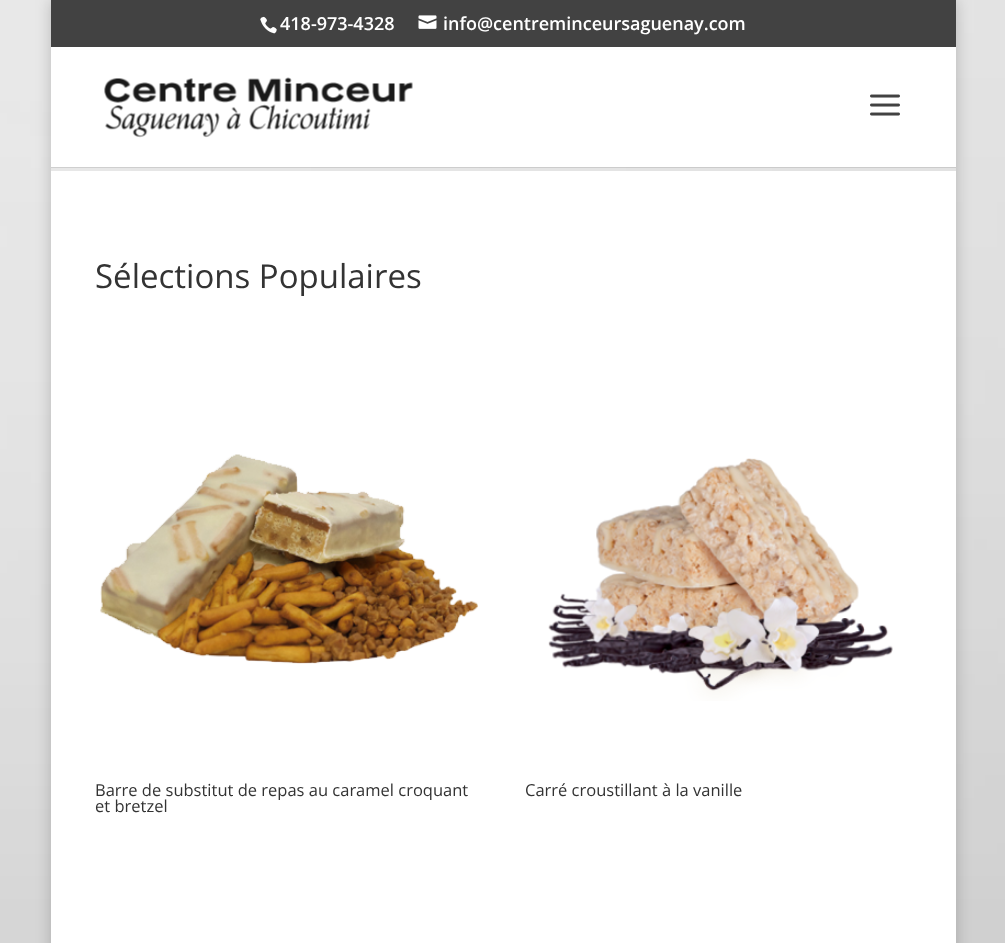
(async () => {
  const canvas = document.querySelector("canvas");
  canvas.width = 1005;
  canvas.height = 943;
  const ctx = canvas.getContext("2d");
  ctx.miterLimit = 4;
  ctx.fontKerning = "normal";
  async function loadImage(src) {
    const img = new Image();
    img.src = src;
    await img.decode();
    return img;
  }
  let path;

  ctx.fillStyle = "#ffffff";
  ctx.fillRect(0, 0, 1005, 943);
  ctx.drawImage(await loadImage("img/1.png"), 0, 0, 1005, 943);
  ctx.save();
  path = new Path2D("M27 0H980V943H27ZM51 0H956V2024H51Z");
  ctx.clip(path, "evenodd");
  ctx.fillStyle = "rgba(0, 0, 0, 0.2)";
  ctx.filter = "blur(7.5px)";
  ctx.beginPath();
  ctx.rect(51, 0, 905, 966);
  ctx.fill();
  ctx.filter = "none";
  ctx.restore();
  ctx.fillStyle = "#424242";
  ctx.fillRect(51, 0, 905, 47);
  ctx.drawImage(await loadImage("img/2.png"), 260, 16, 17, 18);
  ctx.drawImage(await loadImage("img/3.png"), 418, 15, 19, 14);
  ctx.fillStyle = "rgba(0, 0, 0, 0.1)";
  path = new Path2D("M51 166V168H956V48V166Z");
  ctx.fill(path);
  ctx.fillStyle = "#ffffff";
  ctx.fillRect(51, 47, 905, 120);
  ctx.drawImage(await loadImage("img/4.png"), 104, 77, 309, 61);
  ctx.drawImage(await loadImage("img/5.png"), 870, 94, 30, 22);
  ctx.fillRect(51, 171, 905, 772);
  ctx.drawImage(await loadImage("img/6.png"), 100, 454, 379, 210);
  ctx.drawImage(await loadImage("img/7.png"), 548, 458, 345, 243);
  ctx.font = "600 18px Open Sans";
  ctx.fillText("418-973-4328", 280, 30);
  ctx.fillText("info@centreminceursaguenay.com", 443, 30);
  ctx.font = "33px Open Sans";
  ctx.fillStyle = "#333333";
  ctx.fillText("Sélections Populaires", 95, 288);
  ctx.font = "16.5px Open Sans";
  for (const [text, x, y] of [
    ["Barre de substitut de repas au caramel croquant", 95, 796],
    ["et bretzel", 95, 812],
    ["Carré croustillant à la vanille", 525, 796],
  ]) {
    ctx.fillText(text, x, y);
  }
})();
